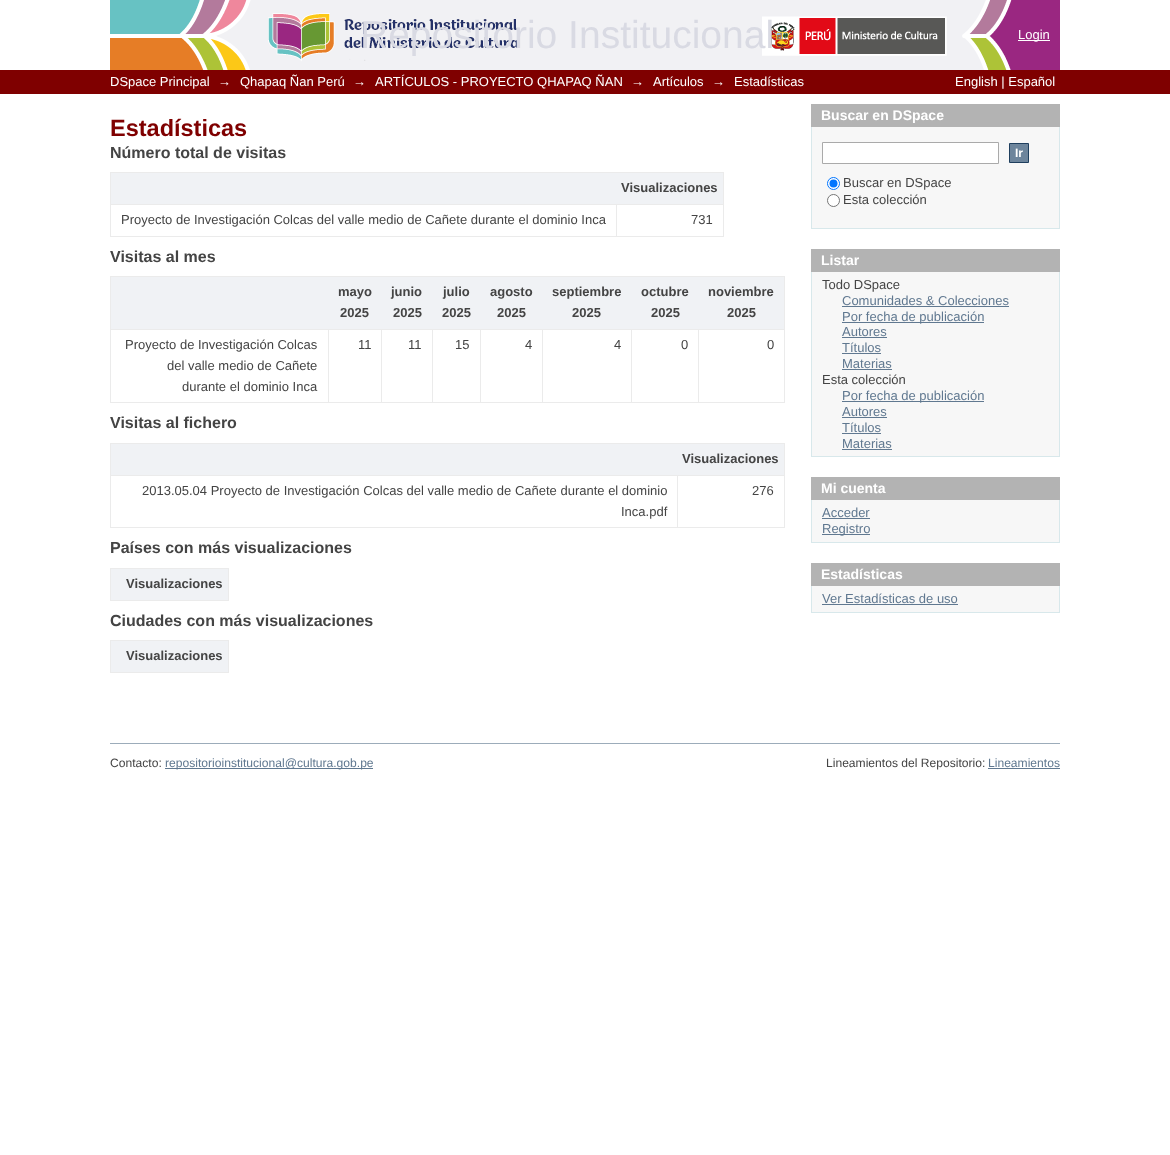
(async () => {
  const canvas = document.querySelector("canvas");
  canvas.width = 1170;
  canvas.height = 1155;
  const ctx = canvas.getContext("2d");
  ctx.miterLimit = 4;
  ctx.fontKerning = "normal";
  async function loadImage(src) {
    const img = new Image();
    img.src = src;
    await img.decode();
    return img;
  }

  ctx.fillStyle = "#ffffff";
  ctx.fillRect(0, 0, 1170, 1155);
  ctx.drawImage(await loadImage("img/1.png"), 110, 0, 950, 70);
  for (const [x, y, w, h, color] of [
    [1018, 40, 32, 1, "#ffffff"],
    [0, 70, 1170, 24, "#7f0000"],
    [110, 172, 614, 1, "#ebebeb"],
    [110, 204, 614, 1, "#ebebeb"],
    [723, 204, 1, 33, "#ebebeb"],
    [723, 172, 1, 33, "#ebebeb"],
    [110, 236, 614, 1, "#ebebeb"],
    [110, 204, 1, 33, "#ebebeb"],
    [110, 172, 1, 33, "#ebebeb"],
    [111, 173, 612, 31, "#f0f2f5"],
    [616, 204, 1, 33, "#ebebeb"],
    [110, 276, 675, 1, "#ebebeb"],
    [110, 329, 675, 1, "#ebebeb"],
    [784, 329, 1, 74, "#ebebeb"],
    [784, 276, 1, 54, "#ebebeb"],
    [110, 402, 675, 1, "#ebebeb"],
    [110, 329, 1, 74, "#ebebeb"],
    [110, 276, 1, 54, "#ebebeb"],
    [111, 277, 673, 52, "#f0f2f5"],
    [328, 329, 1, 74, "#ebebeb"],
    [381, 329, 1, 74, "#ebebeb"],
    [432, 329, 1, 74, "#ebebeb"],
    [480, 329, 1, 74, "#ebebeb"],
    [542, 329, 1, 74, "#ebebeb"],
    [631, 329, 1, 74, "#ebebeb"],
    [698, 329, 1, 74, "#ebebeb"],
    [110, 443, 675, 1, "#ebebeb"],
    [110, 475, 675, 1, "#ebebeb"],
    [784, 475, 1, 53, "#ebebeb"],
    [784, 443, 1, 33, "#ebebeb"],
    [110, 527, 675, 1, "#ebebeb"],
    [110, 475, 1, 53, "#ebebeb"],
    [110, 443, 1, 33, "#ebebeb"],
    [111, 444, 673, 31, "#f0f2f5"],
    [677, 475, 1, 53, "#ebebeb"],
    [110, 568, 119, 1, "#ebebeb"],
    [228, 568, 1, 33, "#ebebeb"],
    [110, 600, 119, 1, "#ebebeb"],
    [110, 568, 1, 33, "#ebebeb"],
    [111, 569, 117, 31, "#f0f2f5"],
    [110, 640, 119, 1, "#ebebeb"],
    [228, 640, 1, 33, "#ebebeb"],
    [110, 672, 119, 1, "#ebebeb"],
    [110, 640, 1, 33, "#ebebeb"],
    [111, 641, 117, 31, "#f0f2f5"],
    [811, 104, 249, 23, "#b3b3b3"],
    [812, 127, 247, 101, "#f7f7f7"],
    [1059, 127, 1, 102, "#d8e8eb"],
    [811, 228, 249, 1, "#d8e8eb"],
    [811, 127, 1, 102, "#d8e8eb"],
  ]) {
    ctx.fillStyle = color;
    ctx.fillRect(x, y, w, h);
  }
  ctx.fillStyle = "#ffffff";
  ctx.beginPath();
  ctx.rect(822.5, 142.5, 176, 21);
  ctx.fill();
  ctx.strokeStyle = "#aaaaaa";
  ctx.stroke();
  ctx.fillStyle = "#6d859c";
  ctx.beginPath();
  ctx.rect(1009.5, 143.5, 19, 19);
  ctx.fill();
  ctx.strokeStyle = "#1f3f5e";
  ctx.stroke();
  ctx.fillStyle = "#ffffff";
  ctx.beginPath();
  ctx.arc(833.5, 183.5, 6, 0, Math.PI * 2);
  ctx.fill();
  ctx.strokeStyle = "#0075ff";
  ctx.stroke();
  ctx.fillStyle = "#0075ff";
  ctx.beginPath();
  ctx.arc(833.5, 183.5, 4, 0, Math.PI * 2);
  ctx.fill();
  ctx.fillStyle = "#ffffff";
  ctx.beginPath();
  ctx.arc(833.5, 200.5, 6, 0, Math.PI * 2);
  ctx.fill();
  ctx.strokeStyle = "#767676";
  ctx.stroke();
  for (const [x, y, w, h, color] of [
    [811, 249, 249, 23, "#b3b3b3"],
    [812, 272, 247, 184, "#f7f7f7"],
    [1059, 272, 1, 185, "#d8e8eb"],
    [811, 456, 249, 1, "#d8e8eb"],
    [811, 272, 1, 185, "#d8e8eb"],
    [842, 306, 167, 1, "#607890"],
    [842, 322, 142, 1, "#607890"],
    [842, 337, 45, 1, "#607890"],
    [842, 353, 39, 1, "#607890"],
    [842, 369, 50, 1, "#607890"],
    [842, 401, 142, 1, "#607890"],
    [842, 417, 45, 1, "#607890"],
    [842, 433, 39, 1, "#607890"],
    [842, 449, 50, 1, "#607890"],
    [811, 477, 249, 23, "#b3b3b3"],
    [812, 500, 247, 42, "#f7f7f7"],
    [1059, 500, 1, 43, "#d8e8eb"],
    [811, 542, 249, 1, "#d8e8eb"],
    [811, 500, 1, 43, "#d8e8eb"],
    [822, 518, 48, 1, "#607890"],
    [822, 534, 48, 1, "#607890"],
    [811, 563, 249, 23, "#b3b3b3"],
    [812, 586, 247, 26, "#f7f7f7"],
    [1059, 586, 1, 27, "#d8e8eb"],
    [811, 612, 249, 1, "#d8e8eb"],
    [811, 586, 1, 27, "#d8e8eb"],
    [822, 604, 136, 1, "#607890"],
    [110, 743, 950, 1, "#9cacba"],
    [165, 768, 208, 1, "#607890"],
    [988, 768, 72, 1, "#607890"],
  ]) {
    ctx.fillStyle = color;
    ctx.fillRect(x, y, w, h);
  }
  ctx.font = "39px Liberation Sans";
  ctx.fillStyle = "#d9dae3";
  ctx.fillText("Repositorio Institucional", 360, 48);
  ctx.font = "13px Liberation Sans";
  ctx.fillStyle = "#ffffff";
  for (const [text, x, y] of [
    ["Login", 1018, 39],
    ["DSpace Principal", 110, 86],
    ["→", 218, 86],
    ["Qhapaq Ñan Perú", 240, 86],
    ["→", 353, 86],
    ["ARTÍCULOS - PROYECTO QHAPAQ ÑAN", 375, 86],
    ["→", 631, 86],
    ["Artículos", 653, 86],
    ["→", 712, 86],
    ["Estadísticas", 734, 86],
    ["English | Español", 955, 86],
  ]) {
    ctx.fillText(text, x, y);
  }
  ctx.font = "bold 23.5px Liberation Sans";
  ctx.fillStyle = "#7f0000";
  ctx.fillText("Estadísticas", 110, 136);
  ctx.font = "bold 16px Liberation Sans";
  ctx.fillStyle = "#444444";
  ctx.fillText("Número total de visitas", 110, 158);
  ctx.font = "bold 13px Liberation Sans";
  ctx.fillText("Visualizaciones", 621, 192);
  ctx.font = "13px Liberation Sans";
  ctx.fillText("Proyecto de Investigación Colcas del valle medio de Cañete durante el dominio Inca", 121, 224);
  ctx.fillText("731", 691, 224);
  ctx.font = "bold 16px Liberation Sans";
  ctx.fillText("Visitas al mes", 110, 262);
  ctx.font = "bold 13px Liberation Sans";
  for (const [text, x, y] of [
    ["mayo", 338, 296],
    ["2025", 340, 317],
    ["junio", 391, 296],
    ["2025", 393, 317],
    ["julio", 443, 296],
    ["2025", 442, 317],
    ["agosto", 490, 296],
    ["2025", 497, 317],
    ["septiembre", 552, 296],
    ["2025", 572, 317],
    ["octubre", 641, 296],
    ["2025", 651, 317],
    ["noviembre", 708, 296],
    ["2025", 727, 317],
  ]) {
    ctx.fillText(text, x, y);
  }
  ctx.font = "13px Liberation Sans";
  for (const [text, x, y] of [
    ["Proyecto de Investigación Colcas", 125, 349],
    ["del valle medio de Cañete", 167, 370],
    ["durante el dominio Inca", 182, 391],
    ["11", 358, 349],
    ["11", 408, 349],
    ["15", 455, 349],
    ["4", 525, 349],
    ["4", 614, 349],
    ["0", 681, 349],
    ["0", 767, 349],
  ]) {
    ctx.fillText(text, x, y);
  }
  ctx.font = "bold 16px Liberation Sans";
  ctx.fillText("Visitas al fichero", 110, 428);
  ctx.font = "bold 13px Liberation Sans";
  ctx.fillText("Visualizaciones", 682, 463);
  ctx.font = "13px Liberation Sans";
  for (const [text, x, y] of [
    ["2013.05.04 Proyecto de Investigación Colcas del valle medio de Cañete durante el dominio", 142, 495],
    ["Inca.pdf", 621, 516],
    ["276", 752, 495],
  ]) {
    ctx.fillText(text, x, y);
  }
  ctx.font = "bold 16px Liberation Sans";
  ctx.fillText("Países con más visualizaciones", 110, 553);
  ctx.font = "bold 13px Liberation Sans";
  ctx.fillText("Visualizaciones", 126, 588);
  ctx.font = "bold 16px Liberation Sans";
  ctx.fillText("Ciudades con más visualizaciones", 110, 626);
  ctx.font = "bold 13px Liberation Sans";
  ctx.fillText("Visualizaciones", 126, 660);
  ctx.font = "bold 14px Liberation Sans";
  ctx.fillStyle = "#ffffff";
  ctx.fillText("Buscar en DSpace", 821, 120);
  ctx.font = "bold 12.1px Liberation Sans";
  ctx.fillText("Ir", 1015, 157);
  ctx.font = "13px Liberation Sans";
  ctx.fillStyle = "#444444";
  ctx.fillText("Buscar en DSpace", 843, 187);
  ctx.fillText("Esta colección", 843, 204);
  ctx.font = "bold 14px Liberation Sans";
  ctx.fillStyle = "#ffffff";
  ctx.fillText("Listar", 821, 265);
  ctx.font = "13px Liberation Sans";
  ctx.fillStyle = "#444444";
  ctx.fillText("Todo DSpace", 822, 289);
  ctx.fillStyle = "#607890";
  for (const [text, x, y] of [
    ["Comunidades & Colecciones", 842, 305],
    ["Por fecha de publicación", 842, 321],
    ["Autores", 842, 336],
    ["Títulos", 842, 352],
    ["Materias", 842, 368],
  ]) {
    ctx.fillText(text, x, y);
  }
  ctx.fillStyle = "#444444";
  ctx.fillText("Esta colección", 822, 384);
  ctx.fillStyle = "#607890";
  for (const [text, x, y] of [
    ["Por fecha de publicación", 842, 400],
    ["Autores", 842, 416],
    ["Títulos", 842, 432],
    ["Materias", 842, 448],
  ]) {
    ctx.fillText(text, x, y);
  }
  ctx.font = "bold 14px Liberation Sans";
  ctx.fillStyle = "#ffffff";
  ctx.fillText("Mi cuenta", 821, 493);
  ctx.font = "13px Liberation Sans";
  ctx.fillStyle = "#607890";
  ctx.fillText("Acceder", 822, 517);
  ctx.fillText("Registro", 822, 533);
  ctx.font = "bold 14px Liberation Sans";
  ctx.fillStyle = "#ffffff";
  ctx.fillText("Estadísticas", 821, 579);
  ctx.font = "13px Liberation Sans";
  ctx.fillStyle = "#607890";
  ctx.fillText("Ver Estadísticas de uso", 822, 603);
  ctx.font = "12.1px Liberation Sans";
  ctx.fillStyle = "#444444";
  ctx.fillText("Contacto:", 110, 767);
  ctx.fillStyle = "#607890";
  ctx.fillText("repositorioinstitucional@cultura.gob.pe", 165, 767);
  ctx.fillStyle = "#444444";
  ctx.fillText("Lineamientos del Repositorio:", 826, 767);
  ctx.fillStyle = "#607890";
  ctx.fillText("Lineamientos", 988, 767);
})();
